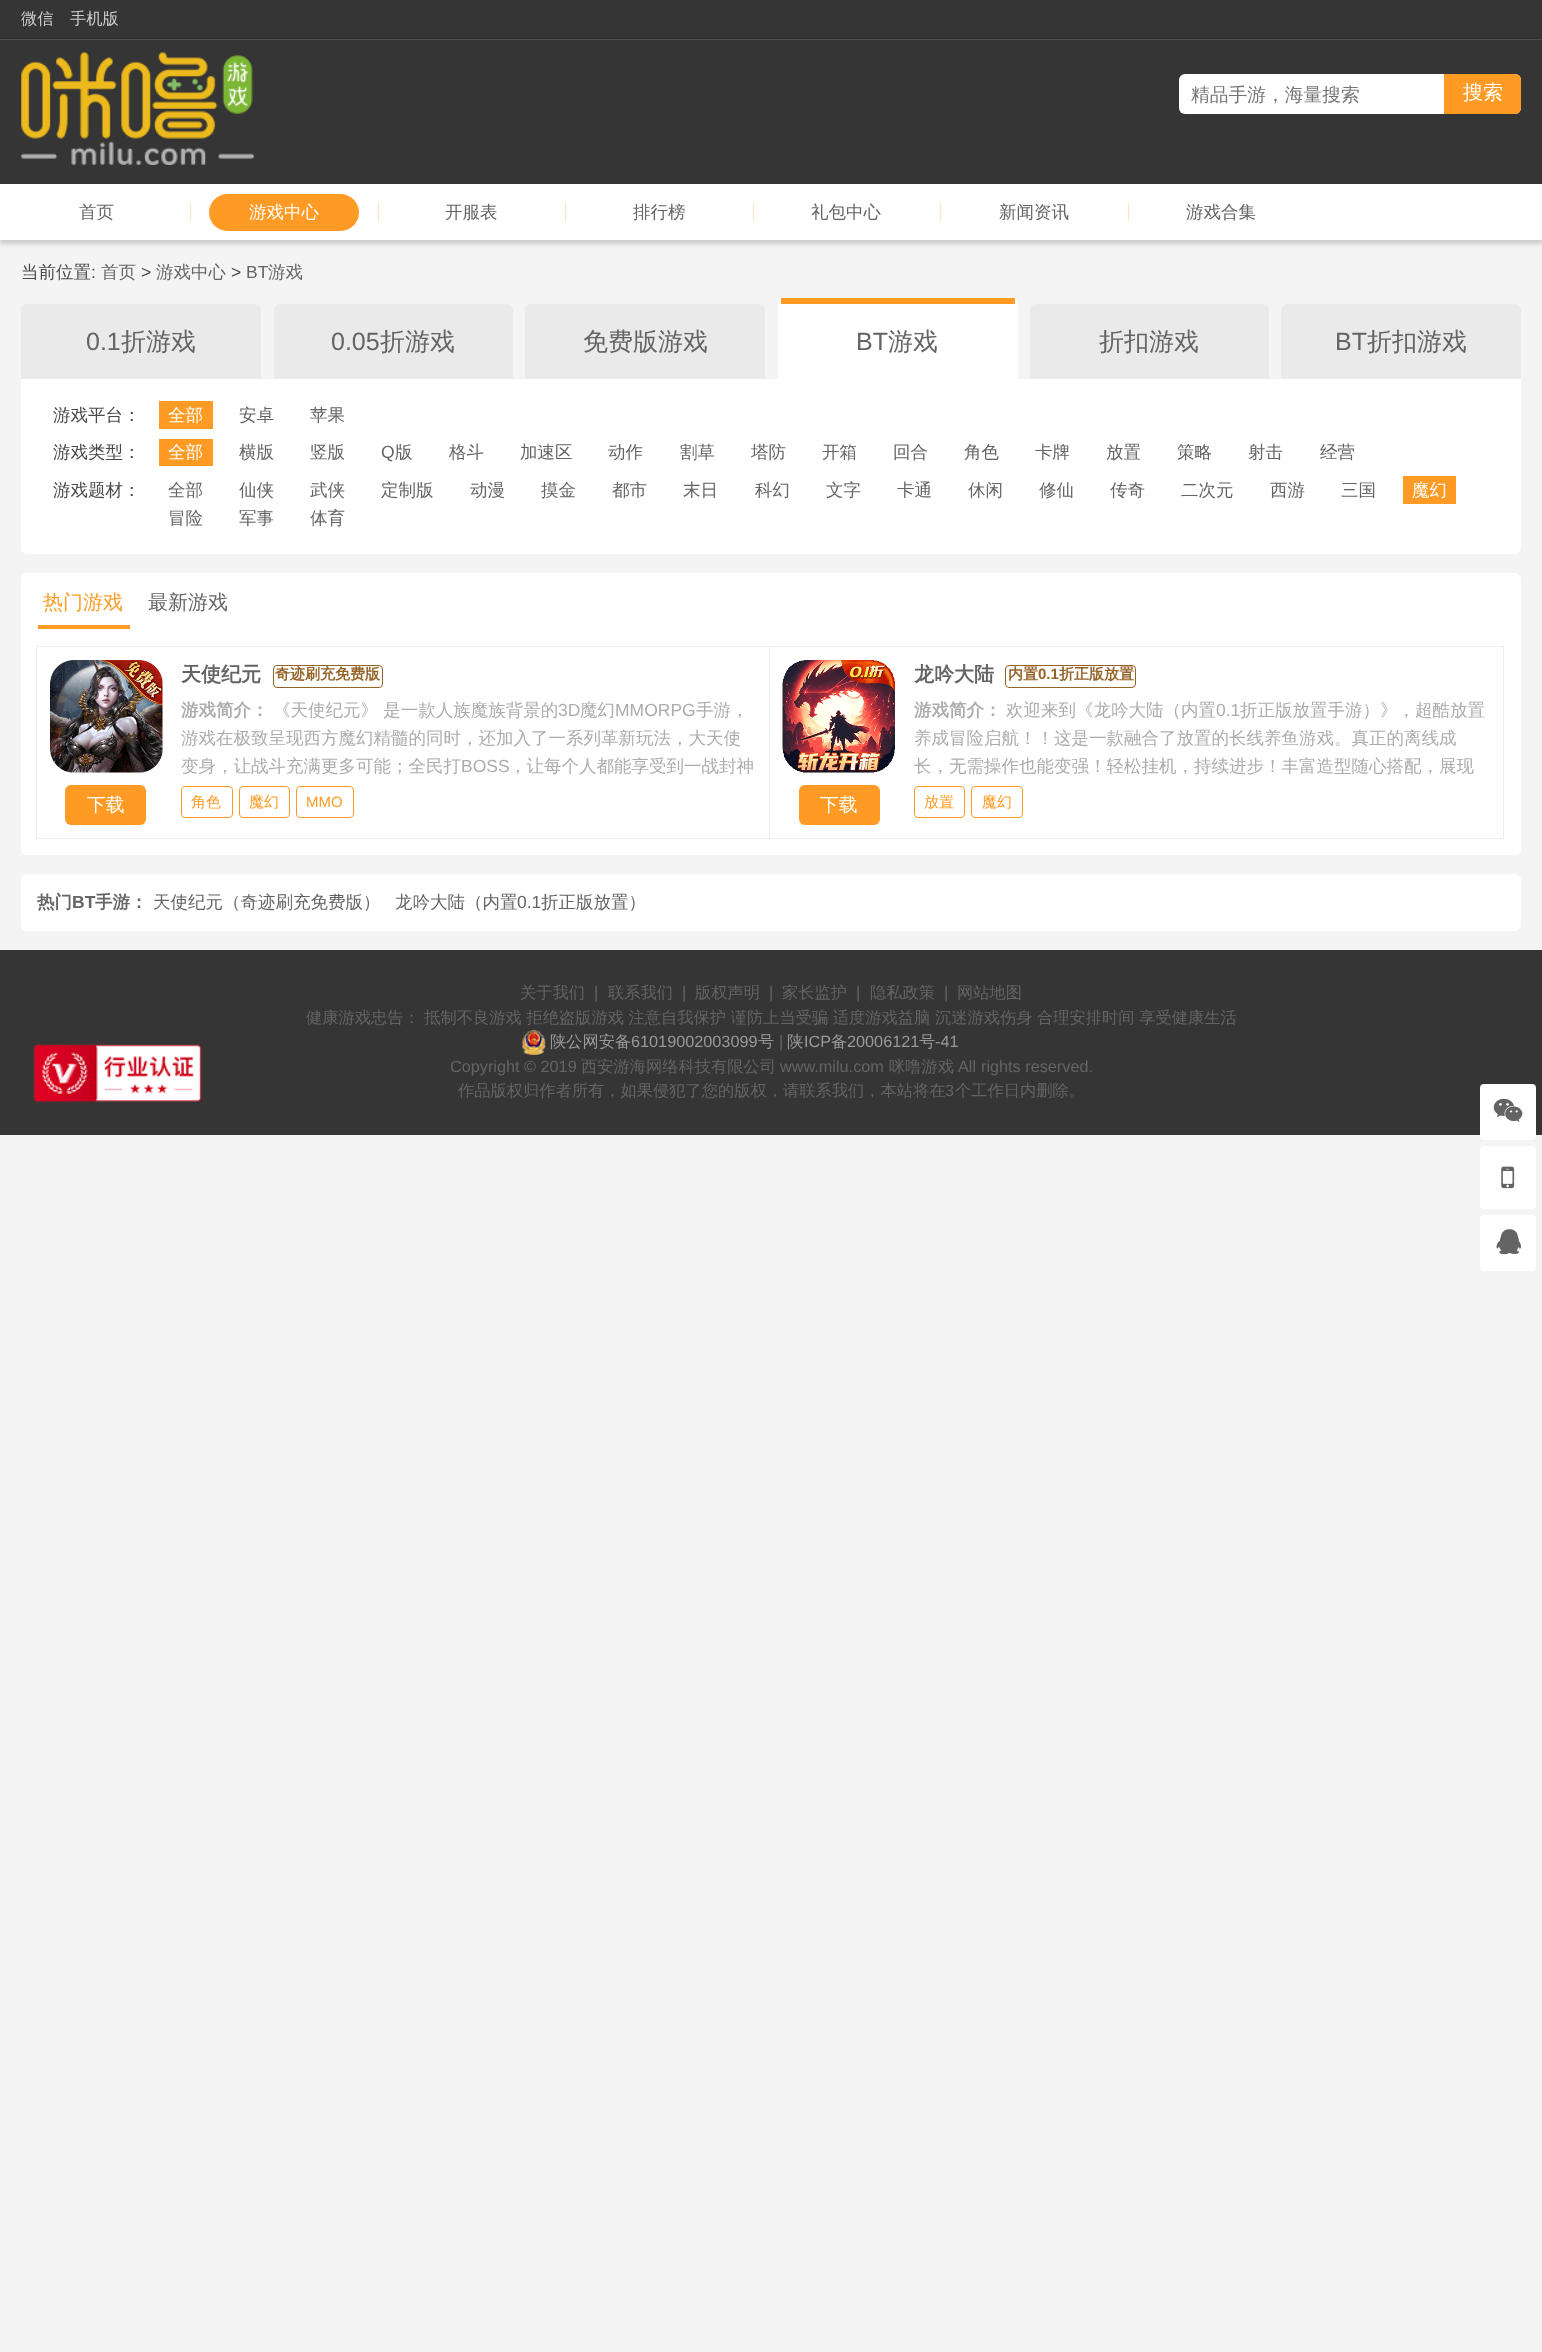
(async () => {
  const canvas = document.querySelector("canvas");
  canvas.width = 1542;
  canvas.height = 2352;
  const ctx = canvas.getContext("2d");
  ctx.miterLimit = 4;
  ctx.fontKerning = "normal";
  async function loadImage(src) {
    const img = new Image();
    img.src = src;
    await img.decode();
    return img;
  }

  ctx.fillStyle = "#f4f4f4";
  ctx.fillRect(0, 0, 1542, 2352);
  for (const [x, y, w, h, color] of [
    [0, 0, 1542, 184, "#353535"],
    [0, 38, 1542, 1, "#2a2a2a"],
    [0, 39, 1542, 1, "#525252"],
  ]) {
    ctx.fillStyle = color;
    ctx.fillRect(x, y, w, h);
  }
  ctx.drawImage(await loadImage("img/1.png"), 21, 52, 233, 113);
  ctx.fillStyle = "#ffffff";
  ctx.beginPath();
  ctx.roundRect(1179, 74, 342, 40, 6);
  ctx.fill();
  ctx.fillStyle = "#ff9b24";
  ctx.beginPath();
  ctx.roundRect(1444, 74, 77, 40, [0, 6, 6, 0]);
  ctx.fill();
  ctx.fillStyle = "#cccccc";
  ctx.filter = "blur(2px)";
  ctx.beginPath();
  ctx.rect(0, 188, 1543, 56);
  ctx.fill();
  ctx.filter = "none";
  ctx.fillStyle = "#ffffff";
  ctx.fillRect(0, 184, 1542, 56);
  ctx.fillStyle = "#ffe2bf";
  ctx.fillRect(190, 203, 1, 18);
  ctx.fillStyle = "#ff9b24";
  ctx.beginPath();
  ctx.roundRect(209, 194, 150, 37, 18.5);
  ctx.fill();
  for (const [x, y, w, h, color] of [
    [378, 203, 1, 18, "#ffe2bf"],
    [565, 203, 1, 18, "#ffe2bf"],
    [753, 203, 1, 18, "#ffe2bf"],
    [940, 203, 1, 18, "#ffe2bf"],
    [1128, 203, 1, 18, "#ffe2bf"],
  ]) {
    ctx.fillStyle = color;
    ctx.fillRect(x, y, w, h);
  }
  ctx.fillStyle = "#eaeaea";
  ctx.beginPath();
  ctx.roundRect(21, 304, 240, 75, [6, 6, 0, 0]);
  ctx.fill();
  ctx.beginPath();
  ctx.roundRect(274, 304, 239, 75, [6, 6, 0, 0]);
  ctx.fill();
  ctx.beginPath();
  ctx.roundRect(525, 304, 240, 75, [6, 6, 0, 0]);
  ctx.fill();
  ctx.fillStyle = "#ffffff";
  ctx.beginPath();
  ctx.roundRect(778, 298, 240, 81, [6, 6, 0, 0]);
  ctx.fill();
  ctx.fillStyle = "#ff9b24";
  ctx.fillRect(781, 298, 234, 6);
  ctx.fillStyle = "#eaeaea";
  ctx.beginPath();
  ctx.roundRect(1030, 304, 239, 75, [6, 6, 0, 0]);
  ctx.fill();
  ctx.beginPath();
  ctx.roundRect(1281, 304, 240, 75, [6, 6, 0, 0]);
  ctx.fill();
  ctx.fillStyle = "#ffffff";
  ctx.beginPath();
  ctx.roundRect(21, 379, 1500, 175, [0, 0, 6, 6]);
  ctx.fill();
  for (const [x, y, w, h, color] of [
    [159, 401, 54, 28, "#ff9b24"],
    [159, 439, 54, 27, "#ff9b24"],
    [1403, 476, 53, 28, "#ff9b24"],
  ]) {
    ctx.fillStyle = color;
    ctx.fillRect(x, y, w, h);
  }
  ctx.fillStyle = "#ffffff";
  ctx.beginPath();
  ctx.roundRect(21, 573, 1500, 282, 6);
  ctx.fill();
  ctx.fillStyle = "#ff9b24";
  ctx.fillRect(38, 625, 92, 4);
  ctx.strokeStyle = "#eeeeee";
  ctx.strokeRect(36.5, 646.5, 733, 192);
  ctx.drawImage(await loadImage("img/2.png"), 50, 660, 113, 113);
  ctx.beginPath();
  ctx.roundRect(65, 785, 81, 40, 6);
  ctx.fill();
  ctx.beginPath();
  ctx.roundRect(273.5, 665.5, 109, 22, 3.5);
  ctx.strokeStyle = "#946328";
  ctx.stroke();
  ctx.beginPath();
  ctx.roundRect(181.5, 786.5, 51, 31, 3.5);
  ctx.strokeStyle = "#ff9b24";
  ctx.stroke();
  ctx.beginPath();
  ctx.roundRect(239.5, 786.5, 50, 31, 3.5);
  ctx.stroke();
  ctx.beginPath();
  ctx.roundRect(296.5, 786.5, 57, 31, 3.5);
  ctx.stroke();
  ctx.strokeStyle = "#eeeeee";
  ctx.strokeRect(769.5, 646.5, 734, 192);
  ctx.drawImage(await loadImage("img/3.png"), 782, 660, 113, 113);
  ctx.beginPath();
  ctx.roundRect(799, 785, 81, 40, 6);
  ctx.fill();
  ctx.beginPath();
  ctx.roundRect(1005.5, 665.5, 130, 22, 3.5);
  ctx.strokeStyle = "#946328";
  ctx.stroke();
  ctx.beginPath();
  ctx.roundRect(914.5, 786.5, 50, 31, 3.5);
  ctx.strokeStyle = "#ff9b24";
  ctx.stroke();
  ctx.beginPath();
  ctx.roundRect(971.5, 786.5, 51, 31, 3.5);
  ctx.stroke();
  ctx.fillStyle = "#ffffff";
  ctx.beginPath();
  ctx.roundRect(21, 874, 1500, 57, 6);
  ctx.fill();
  ctx.fillStyle = "#353535";
  ctx.fillRect(0, 950, 1542, 185);
  ctx.drawImage(await loadImage("img/4.png"), 33, 1043, 169, 60);
  ctx.drawImage(await loadImage("img/5.png"), 522, 1030, 24, 25);
  ctx.fillStyle = "#ffffff";
  ctx.beginPath();
  ctx.roundRect(1480, 1084, 56, 56, 4);
  ctx.fill();
  ctx.drawImage(await loadImage("img/6.png"), 1493, 1098, 30, 24);
  ctx.beginPath();
  ctx.roundRect(1480, 1146, 56, 63, 4);
  ctx.fill();
  ctx.drawImage(await loadImage("img/7.png"), 1501, 1166, 14, 23);
  ctx.beginPath();
  ctx.roundRect(1480, 1215, 56, 56, 4);
  ctx.fill();
  ctx.drawImage(await loadImage("img/8.png"), 1496, 1229, 25, 26);
  ctx.font = "500 16.25px WenQuanYi Zen Hei";
  ctx.fillStyle = "#cdcdcd";
  ctx.fillText("微信", 21, 24);
  ctx.fillText("手机版", 70, 24);
  ctx.font = "500 18.75px WenQuanYi Zen Hei";
  ctx.fillStyle = "#757575";
  ctx.fillText("精品手游，海量搜索", 1191, 101);
  ctx.font = "500 20px WenQuanYi Zen Hei";
  ctx.fillStyle = "#ffffff";
  ctx.fillText("搜索", 1463, 99);
  ctx.font = "500 17.5px WenQuanYi Zen Hei";
  ctx.fillStyle = "#646464";
  ctx.fillText("首页", 79, 218);
  ctx.fillStyle = "#ffffff";
  ctx.fillText("游戏中心", 249, 218);
  ctx.fillStyle = "#646464";
  for (const [text, x, y] of [
    ["开服表", 445, 218],
    ["排行榜", 633, 218],
    ["礼包中心", 811, 218],
    ["新闻资讯", 999, 218],
    ["游戏合集", 1186, 218],
  ]) {
    ctx.fillText(text, x, y);
  }
  ctx.fillStyle = "#494949";
  ctx.fillText("当前位置", 21, 278);
  ctx.font = "17.5px Liberation Sans";
  ctx.fillText(":", 91, 278);
  ctx.font = "500 17.5px WenQuanYi Zen Hei";
  ctx.fillStyle = "#646464";
  ctx.fillText("首页", 101, 278);
  ctx.font = "17.5px Liberation Sans";
  ctx.fillStyle = "#494949";
  ctx.fillText(">", 141, 278);
  ctx.font = "500 17.5px WenQuanYi Zen Hei";
  ctx.fillStyle = "#646464";
  ctx.fillText("游戏中心", 156, 278);
  ctx.font = "17.5px Liberation Sans";
  ctx.fillStyle = "#494949";
  ctx.fillText(">", 231, 278);
  ctx.fillStyle = "#646464";
  ctx.fillText("BT", 246, 278);
  ctx.font = "500 17.5px WenQuanYi Zen Hei";
  ctx.fillText("游戏", 268, 278);
  ctx.font = "25px Liberation Sans";
  ctx.fillText("0.1", 86, 350);
  ctx.font = "500 25px WenQuanYi Zen Hei";
  ctx.fillText("折游戏", 121, 350);
  ctx.font = "25px Liberation Sans";
  ctx.fillText("0.05", 331, 350);
  ctx.font = "500 25px WenQuanYi Zen Hei";
  ctx.fillText("折游戏", 380, 350);
  ctx.fillText("免费版游戏", 583, 350);
  ctx.font = "25px Liberation Sans";
  ctx.fillText("BT", 856, 350);
  ctx.font = "500 25px WenQuanYi Zen Hei";
  ctx.fillText("游戏", 888, 350);
  ctx.fillText("折扣游戏", 1099, 350);
  ctx.font = "25px Liberation Sans";
  ctx.fillText("BT", 1335, 350);
  ctx.font = "500 25px WenQuanYi Zen Hei";
  ctx.fillText("折扣游戏", 1367, 350);
  ctx.font = "500 17.5px WenQuanYi Zen Hei";
  ctx.fillStyle = "#494949";
  ctx.fillText("游戏平台：", 53, 421);
  ctx.fillStyle = "#ffffff";
  ctx.fillText("全部", 168, 421);
  ctx.fillStyle = "#646464";
  ctx.fillText("安卓", 239, 421);
  ctx.fillText("苹果", 310, 421);
  ctx.fillStyle = "#494949";
  ctx.fillText("游戏类型：", 53, 458);
  ctx.fillStyle = "#ffffff";
  ctx.fillText("全部", 168, 458);
  ctx.fillStyle = "#646464";
  ctx.fillText("横版", 239, 458);
  ctx.fillText("竖版", 310, 458);
  ctx.font = "17.5px Liberation Sans";
  ctx.fillText("Q", 381, 458);
  ctx.font = "500 17.5px WenQuanYi Zen Hei";
  for (const [text, x, y] of [
    ["版", 395, 458],
    ["格斗", 449, 458],
    ["加速区", 520, 458],
    ["动作", 608, 458],
    ["割草", 680, 458],
    ["塔防", 751, 458],
    ["开箱", 822, 458],
    ["回合", 893, 458],
    ["角色", 964, 458],
    ["卡牌", 1035, 458],
    ["放置", 1106, 458],
    ["策略", 1177, 458],
    ["射击", 1248, 458],
    ["经营", 1320, 458],
  ]) {
    ctx.fillText(text, x, y);
  }
  ctx.fillStyle = "#494949";
  ctx.fillText("游戏题材：", 53, 496);
  ctx.fillStyle = "#646464";
  for (const [text, x, y] of [
    ["全部", 168, 496],
    ["仙侠", 239, 496],
    ["武侠", 310, 496],
    ["定制版", 381, 496],
    ["动漫", 470, 496],
    ["摸金", 541, 496],
    ["都市", 612, 496],
    ["末日", 683, 496],
    ["科幻", 755, 496],
    ["文字", 826, 496],
    ["卡通", 897, 496],
    ["休闲", 968, 496],
    ["修仙", 1039, 496],
    ["传奇", 1110, 496],
    ["二次元", 1181, 496],
    ["西游", 1270, 496],
    ["三国", 1341, 496],
  ]) {
    ctx.fillText(text, x, y);
  }
  ctx.fillStyle = "#ffffff";
  ctx.fillText("魔幻", 1412, 496);
  ctx.fillStyle = "#646464";
  for (const [text, x, y] of [
    ["冒险", 168, 524],
    ["军事", 239, 524],
    ["体育", 310, 524],
  ]) {
    ctx.fillText(text, x, y);
  }
  ctx.font = "500 20px WenQuanYi Zen Hei";
  ctx.fillStyle = "#ff9b24";
  ctx.fillText("热门游戏", 43, 609);
  ctx.fillStyle = "#646464";
  ctx.fillText("最新游戏", 148, 609);
  ctx.font = "500 18.75px WenQuanYi Zen Hei";
  ctx.fillStyle = "#ffffff";
  ctx.fillText("下载", 87, 811);
  ctx.font = "bold 20px WenQuanYi Zen Hei";
  ctx.fillStyle = "#646464";
  ctx.fillText("天使纪元", 181, 681);
  ctx.font = "bold 15px WenQuanYi Zen Hei";
  ctx.fillStyle = "#946328";
  ctx.fillText("奇迹刷充免费版", 275, 679);
  ctx.font = "bold 17.5px WenQuanYi Zen Hei";
  ctx.fillStyle = "#acacac";
  ctx.fillText("游戏简介：", 181, 716);
  ctx.font = "500 17.5px WenQuanYi Zen Hei";
  ctx.fillText("《天使纪元》 是一款人族魔族背景的", 273, 716);
  ctx.font = "17.5px Liberation Sans";
  ctx.fillText("3D", 558, 716);
  ctx.font = "500 17.5px WenQuanYi Zen Hei";
  ctx.fillText("魔幻", 580, 716);
  ctx.font = "17.5px Liberation Sans";
  ctx.fillText("MMORPG", 615, 716);
  ctx.font = "500 17.5px WenQuanYi Zen Hei";
  for (const [text, x, y] of [
    ["手游，", 696, 716],
    ["游戏在极致呈现西方魔幻精髓的同时，还加入了一系列革新玩法，大天使", 181, 744],
    ["变身，让战斗充满更多可能；全民打", 181, 772],
  ]) {
    ctx.fillText(text, x, y);
  }
  ctx.font = "17.5px Liberation Sans";
  ctx.fillText("BOSS", 461, 772);
  ctx.font = "500 17.5px WenQuanYi Zen Hei";
  ctx.fillText("，让每个人都能享受到一战封神", 509, 772);
  ctx.font = "500 15px WenQuanYi Zen Hei";
  ctx.fillStyle = "#ff9b24";
  ctx.fillText("角色", 191, 807);
  ctx.fillText("魔幻", 249, 807);
  ctx.font = "15px Liberation Sans";
  ctx.fillText("MMO", 306, 807);
  ctx.font = "500 18.75px WenQuanYi Zen Hei";
  ctx.fillStyle = "#ffffff";
  ctx.fillText("下载", 820, 811);
  ctx.font = "bold 20px WenQuanYi Zen Hei";
  ctx.fillStyle = "#646464";
  ctx.fillText("龙吟大陆", 914, 681);
  ctx.font = "bold 15px WenQuanYi Zen Hei";
  ctx.fillStyle = "#946328";
  ctx.fillText("内置", 1008, 679);
  ctx.font = "bold 15px Liberation Sans";
  ctx.fillText("0.1", 1038, 679);
  ctx.font = "bold 15px WenQuanYi Zen Hei";
  ctx.fillText("折正版放置", 1059, 679);
  ctx.font = "bold 17.5px WenQuanYi Zen Hei";
  ctx.fillStyle = "#acacac";
  ctx.fillText("游戏简介：", 914, 716);
  ctx.font = "500 17.5px WenQuanYi Zen Hei";
  ctx.fillText("欢迎来到《龙吟大陆（内置", 1006, 716);
  ctx.font = "17.5px Liberation Sans";
  ctx.fillText("0.1", 1216, 716);
  ctx.font = "500 17.5px WenQuanYi Zen Hei";
  for (const [text, x, y] of [
    ["折正版放置手游）》，超酷放置", 1240, 716],
    ["养成冒险启航！！这是一款融合了放置的长线养鱼游戏。真正的离线成", 914, 744],
    ["长，无需操作也能变强！轻松挂机，持续进步！丰富造型随心搭配，展现", 914, 772],
  ]) {
    ctx.fillText(text, x, y);
  }
  ctx.font = "500 15px WenQuanYi Zen Hei";
  ctx.fillStyle = "#ff9b24";
  ctx.fillText("放置", 924, 807);
  ctx.fillText("魔幻", 982, 807);
  ctx.font = "bold 17.5px WenQuanYi Zen Hei";
  ctx.fillStyle = "#646464";
  ctx.fillText("热门", 37, 908);
  ctx.font = "bold 17.5px Liberation Sans";
  ctx.fillText("BT", 72, 908);
  ctx.font = "bold 17.5px WenQuanYi Zen Hei";
  ctx.fillText("手游：", 95, 908);
  ctx.font = "500 17.5px WenQuanYi Zen Hei";
  ctx.fillText("天使纪元（奇迹刷充免费版）", 153, 908);
  ctx.fillText("龙吟大陆（内置", 395, 908);
  ctx.font = "17.5px Liberation Sans";
  ctx.fillText("0.1", 517, 908);
  ctx.font = "500 17.5px WenQuanYi Zen Hei";
  ctx.fillText("折正版放置）", 541, 908);
  ctx.font = "500 16.25px WenQuanYi Zen Hei";
  ctx.fillText("关于我们", 520, 998);
  ctx.font = "16.25px Liberation Sans";
  ctx.fillText("|", 594, 998);
  ctx.font = "500 16.25px WenQuanYi Zen Hei";
  ctx.fillText("联系我们", 608, 998);
  ctx.font = "16.25px Liberation Sans";
  ctx.fillText("|", 682, 998);
  ctx.font = "500 16.25px WenQuanYi Zen Hei";
  ctx.fillText("版权声明", 695, 998);
  ctx.font = "16.25px Liberation Sans";
  ctx.fillText("|", 769, 998);
  ctx.font = "500 16.25px WenQuanYi Zen Hei";
  ctx.fillText("家长监护", 782, 998);
  ctx.font = "16.25px Liberation Sans";
  ctx.fillText("|", 856, 998);
  ctx.font = "500 16.25px WenQuanYi Zen Hei";
  ctx.fillText("隐私政策", 870, 998);
  ctx.font = "16.25px Liberation Sans";
  ctx.fillText("|", 944, 998);
  ctx.font = "500 16.25px WenQuanYi Zen Hei";
  ctx.fillText("网站地图", 957, 998);
  ctx.wordSpacing = "-0.25px";
  ctx.fillText("健康游戏忠告： 抵制不良游戏 拒绝盗版游戏 注意自我保护 谨防上当受骗 适度游戏益脑 沉迷游戏伤身 合理安排时间 享受健康生活", 306, 1023);
  ctx.wordSpacing = "0px";
  ctx.fillStyle = "#999999";
  ctx.fillText("陕公网安备", 550, 1047);
  ctx.font = "16.25px Liberation Sans";
  ctx.fillText("61019002003099", 631, 1047);
  ctx.font = "500 16.25px WenQuanYi Zen Hei";
  ctx.fillText("号", 758, 1047);
  ctx.font = "16.25px Liberation Sans";
  ctx.fillStyle = "#646464";
  ctx.fillText("|", 779, 1047);
  ctx.font = "500 16.25px WenQuanYi Zen Hei";
  ctx.fillStyle = "#999999";
  ctx.fillText("陕", 787, 1047);
  ctx.font = "16.25px Liberation Sans";
  ctx.fillText("ICP", 804, 1047);
  ctx.font = "500 16.25px WenQuanYi Zen Hei";
  ctx.fillText("备", 831, 1047);
  ctx.font = "16.25px Liberation Sans";
  ctx.fillText("20006121", 847, 1047);
  ctx.font = "500 16.25px WenQuanYi Zen Hei";
  ctx.fillText("号", 919, 1047);
  ctx.font = "16.25px Liberation Sans";
  ctx.fillText("-41", 935, 1047);
  ctx.fillStyle = "#646464";
  ctx.fillText("Copyright © 2019", 450, 1072);
  ctx.font = "500 16.25px WenQuanYi Zen Hei";
  ctx.fillText("西安游海网络科技有限公司", 581, 1072);
  ctx.font = "16.25px Liberation Sans";
  ctx.fillText("www.milu.com", 780, 1072);
  ctx.font = "500 16.25px WenQuanYi Zen Hei";
  ctx.fillText("咪噜游戏", 889, 1072);
  ctx.font = "16.25px Liberation Sans";
  ctx.fillText("All", 958, 1072);
  ctx.fillText("rights reserved.", 981, 1072);
  ctx.font = "500 16.25px WenQuanYi Zen Hei";
  ctx.fillText("作品版权归作者所有，如果侵犯了您的版权，请联系我们，本站将在", 458, 1096);
  ctx.font = "16.25px Liberation Sans";
  ctx.fillText("3", 945, 1096);
  ctx.font = "500 16.25px WenQuanYi Zen Hei";
  ctx.fillText("个工作日内删除。", 955, 1096);
})();
